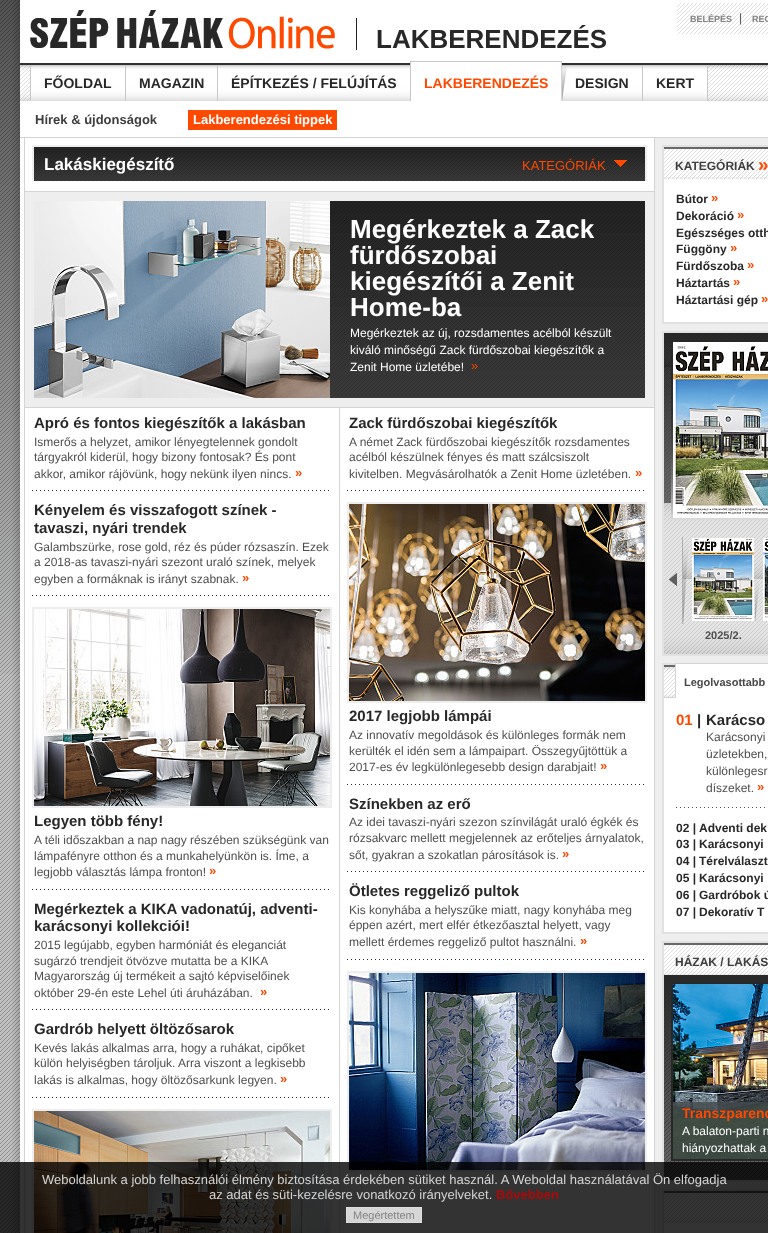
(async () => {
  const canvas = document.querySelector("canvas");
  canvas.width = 768;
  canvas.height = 1233;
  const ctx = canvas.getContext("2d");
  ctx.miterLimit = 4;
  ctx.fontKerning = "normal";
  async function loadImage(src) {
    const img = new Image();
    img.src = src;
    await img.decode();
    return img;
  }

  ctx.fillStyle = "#ffffff";
  ctx.fillRect(0, 0, 768, 1233);
  ctx.drawImage(await loadImage("img/1.png"), 0, 674, 20, 559);
  ctx.drawImage(await loadImage("img/2.png"), 0, 0, 20, 674);
  ctx.drawImage(await loadImage("img/3.png"), 12, 0, 756, 1233);
  ctx.drawImage(await loadImage("img/4.png"), 30, 10, 305, 39);
  ctx.fillStyle = "#232323";
  ctx.fillRect(356, 18, 1, 32);
  ctx.drawImage(await loadImage("img/5.png"), 677, 3, 91, 31);
  ctx.drawImage(await loadImage("img/6.png"), 20, 63, 748, 38);
  ctx.drawImage(await loadImage("img/7.png"), 31, 65, 94, 36);
  ctx.fillStyle = "#c8c8c8";
  ctx.fillRect(125, 65, 1, 36);
  ctx.fillRect(30, 65, 1, 36);
  ctx.drawImage(await loadImage("img/8.png"), 126, 65, 91, 36);
  ctx.fillRect(217, 65, 1, 36);
  ctx.drawImage(await loadImage("img/9.png"), 218, 65, 192, 36);
  for (const [x, y, w, h, color] of [
    [410, 61, 1, 40, "#c8c8c8"],
    [411, 63, 150, 38, "#ffffff"],
    [411, 61, 151, 1, "#c8c8c8"],
  ]) {
    ctx.fillStyle = color;
    ctx.fillRect(x, y, w, h);
  }
  ctx.drawImage(await loadImage("img/11.png"), 563, 65, 79, 36);
  ctx.drawImage(await loadImage("img/10.png"), 561, 61, 6, 40);
  ctx.fillRect(642, 65, 1, 36);
  ctx.drawImage(await loadImage("img/12.png"), 643, 65, 64, 36);
  for (const [x, y, w, h, color] of [
    [707, 65, 1, 36, "#c8c8c8"],
    [188, 110, 149, 20, "#ff4800"],
    [20, 137, 748, 1, "#d4d4d4"],
    [24, 138, 1, 1095, "#d4d4d4"],
  ]) {
    ctx.fillStyle = color;
    ctx.fillRect(x, y, w, h);
  }
  ctx.drawImage(await loadImage("img/13.png"), 34, 147, 611, 34);
  for (const [x, y, w, h, color] of [
    [32, 145, 615, 2, "#eeeeee"],
    [645, 145, 2, 36, "#eeeeee"],
    [32, 145, 2, 36, "#eeeeee"],
  ]) {
    ctx.fillStyle = color;
    ctx.fillRect(x, y, w, h);
  }
  ctx.drawImage(await loadImage("img/14.png"), 614, 160, 13, 7);
  ctx.fillStyle = "#d4d4d4";
  ctx.fillRect(25, 191, 629, 1);
  ctx.strokeStyle = "#eeeeee";
  ctx.lineWidth = 9;
  ctx.strokeRect(29.5, 196.5, 620, 206);
  ctx.drawImage(await loadImage("img/15.png"), 34, 201, 296, 197);
  ctx.drawImage(await loadImage("img/16.png"), 330, 201, 315, 197);
  ctx.fillRect(25, 407, 629, 1);
  ctx.drawImage(await loadImage("img/17.png"), 32, 490, 297, 1);
  ctx.drawImage(await loadImage("img/17.png"), 32, 595, 297, 1);
  ctx.lineWidth = 2;
  ctx.strokeRect(33, 608, 298, 199);
  ctx.drawImage(await loadImage("img/18.png"), 34, 609, 296, 197);
  ctx.drawImage(await loadImage("img/17.png"), 32, 889, 297, 1);
  ctx.drawImage(await loadImage("img/17.png"), 32, 1009, 297, 1);
  ctx.drawImage(await loadImage("img/17.png"), 32, 1097, 297, 1);
  ctx.strokeRect(33, 1110, 298, 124);
  ctx.drawImage(await loadImage("img/19.png"), 34, 1111, 296, 122);
  ctx.fillRect(339, 408, 1, 825);
  ctx.drawImage(await loadImage("img/17.png"), 347, 490, 297, 1);
  ctx.strokeRect(348, 503, 298, 199);
  ctx.drawImage(await loadImage("img/20.png"), 349, 504, 296, 197);
  ctx.drawImage(await loadImage("img/17.png"), 347, 784, 297, 1);
  ctx.drawImage(await loadImage("img/17.png"), 347, 871, 297, 1);
  ctx.drawImage(await loadImage("img/17.png"), 347, 959, 297, 1);
  ctx.strokeRect(348, 972, 298, 199);
  ctx.drawImage(await loadImage("img/21.png"), 349, 973, 296, 197);
  for (const [x, y, w, h, color] of [
    [654, 138, 1, 1095, "#d4d4d4"],
    [655, 138, 113, 1095, "#eeeeee"],
    [664, 179, 104, 143, "#ffffff"],
  ]) {
    ctx.fillStyle = color;
    ctx.fillRect(x, y, w, h);
  }
  ctx.strokeStyle = "#e1e1e1";
  ctx.strokeRect(663, 146, 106, 177);
  ctx.drawImage(await loadImage("img/22.png"), 664, 147, 104, 32);
  ctx.strokeRect(663, 332, 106, 323);
  ctx.drawImage(await loadImage("img/23.png"), 664, 333, 104, 321);
  ctx.drawImage(await loadImage("img/24.png"), 673, 342, 95, 176);
  ctx.drawImage(await loadImage("img/25.png"), 763, 538, 5, 83);
  ctx.drawImage(await loadImage("img/26.png"), 692, 538, 62, 83);
  ctx.fillRect(664, 698, 104, 234);
  ctx.strokeRect(663, 664, 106, 269);
  ctx.drawImage(await loadImage("img/27.png"), 664, 663, 104, 35);
  ctx.drawImage(await loadImage("img/28.png"), 676, 807, 89, 1);
  ctx.strokeRect(663, 942, 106, 239);
  ctx.drawImage(await loadImage("img/22.png"), 664, 943, 104, 32);
  ctx.drawImage(await loadImage("img/29.png"), 664, 975, 104, 205);
  ctx.strokeStyle = "#282828";
  ctx.strokeRect(672, 983, 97, 177);
  ctx.drawImage(await loadImage("img/30.png"), 673, 984, 95, 175);
  ctx.fillStyle = "rgba(67, 74, 76, 0.8)";
  ctx.fillRect(673, 1102, 95, 57);
  ctx.fillStyle = "#ffffff";
  ctx.fillRect(664, 1223, 104, 10);
  ctx.strokeStyle = "#e1e1e1";
  ctx.strokeRect(663, 1190, 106, 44);
  ctx.drawImage(await loadImage("img/22.png"), 664, 1191, 104, 32);
  ctx.fillStyle = "rgba(0, 0, 0, 0.8)";
  ctx.fillRect(0, 1162, 768, 71);
  ctx.fillStyle = "rgba(255, 255, 255, 0.8)";
  ctx.fillRect(346, 1207, 76, 16);
  ctx.strokeStyle = "rgba(223, 223, 223, 0.8)";
  ctx.lineWidth = 1;
  ctx.strokeRect(346.5, 1207.5, 75, 15);
  ctx.font = "bold 26px Liberation Sans";
  ctx.fillStyle = "#282828";
  ctx.fillText("LAKBERENDEZÉS", 376, 48);
  ctx.font = "bold 9px Liberation Sans";
  ctx.fillStyle = "#828282";
  ctx.fillText("BELÉPÉS", 690, 22);
  ctx.font = "12px Liberation Sans";
  ctx.fillStyle = "#4e4e4e";
  ctx.fillText("|", 739, 22);
  ctx.font = "bold 9px Liberation Sans";
  ctx.fillStyle = "#828282";
  ctx.fillText("REG", 752, 22);
  ctx.font = "bold 14px Liberation Sans";
  ctx.fillStyle = "#282828";
  for (const [text, x, y] of [
    ["FŐOLDAL", 44, 88],
    ["MAGAZIN", 139, 88],
    ["ÉPÍTKEZÉS / FELÚJÍTÁS", 231, 88],
  ]) {
    ctx.fillText(text, x, y);
  }
  ctx.fillStyle = "#ff4800";
  ctx.fillText("LAKBERENDEZÉS", 424, 88);
  ctx.fillStyle = "#282828";
  ctx.fillText("DESIGN", 575, 88);
  ctx.fillText("KERT", 656, 88);
  ctx.font = "bold 13px Liberation Sans";
  ctx.fillStyle = "#3e3e3e";
  ctx.fillText("Hírek & újdonságok", 35, 124);
  ctx.fillStyle = "#ffffff";
  ctx.fillText("Lakberendezési tippek", 193, 124);
  ctx.font = "bold 17px Liberation Sans";
  ctx.fillText("Lakáskiegészítő", 44, 170);
  ctx.font = "13px Liberation Sans";
  ctx.fillStyle = "#ff4800";
  ctx.fillText("KATEGÓRIÁK", 522, 170);
  ctx.font = "bold 26px Liberation Sans";
  ctx.fillStyle = "#ffffff";
  for (const [text, x, y] of [
    ["Megérkeztek a Zack", 350, 238],
    ["fürdőszobai", 350, 264],
    ["kiegészítői a Zenit", 350, 290],
    ["Home-ba", 350, 316],
  ]) {
    ctx.fillText(text, x, y);
  }
  ctx.font = "12px Liberation Sans";
  for (const [text, x, y] of [
    ["Megérkeztek az új, rozsdamentes acélból készült", 350, 337],
    ["kiváló minőségű Zack fürdőszobai kiegészítők a", 350, 354],
    ["Zenit Home üzletébe!", 350, 371],
  ]) {
    ctx.fillText(text, x, y);
  }
  ctx.font = "13px Liberation Sans";
  ctx.fillStyle = "#ff4800";
  ctx.fillText("»", 471, 370);
  ctx.font = "bold 15px Liberation Sans";
  ctx.fillStyle = "#282828";
  ctx.fillText("Apró és fontos kiegészítők a lakásban", 34, 428);
  ctx.font = "12px Liberation Sans";
  ctx.fillStyle = "#4e4e4e";
  for (const [text, x, y] of [
    ["Ismerős a helyzet, amikor lényegtelennek gondolt", 34, 446],
    ["tárgyakról kiderül, hogy bizony fontosak? És pont", 34, 461],
    ["akkor, amikor rájövünk, hogy nekünk ilyen nincs.", 34, 478],
  ]) {
    ctx.fillText(text, x, y);
  }
  ctx.font = "bold 13px Liberation Sans";
  ctx.fillStyle = "#ff4800";
  ctx.fillText("»", 295, 477);
  ctx.font = "bold 15px Liberation Sans";
  ctx.fillStyle = "#282828";
  ctx.fillText("Kényelem és visszafogott színek -", 34, 515);
  ctx.fillText("tavaszi, nyári trendek", 34, 533);
  ctx.font = "12px Liberation Sans";
  ctx.fillStyle = "#4e4e4e";
  for (const [text, x, y] of [
    ["Galambszürke, rose gold, réz és púder rózsaszín. Ezek", 34, 551],
    ["a 2018-as tavaszi-nyári szezont uraló színek, melyek", 34, 566],
    ["egyben a formáknak is irányt szabnak.", 34, 583],
  ]) {
    ctx.fillText(text, x, y);
  }
  ctx.font = "bold 13px Liberation Sans";
  ctx.fillStyle = "#ff4800";
  ctx.fillText("»", 242, 582);
  ctx.font = "bold 15px Liberation Sans";
  ctx.fillStyle = "#282828";
  ctx.fillText("Legyen több fény!", 34, 826);
  ctx.font = "12px Liberation Sans";
  ctx.fillStyle = "#4e4e4e";
  for (const [text, x, y] of [
    ["A téli időszakban a nap nagy részében szükségünk van", 34, 844],
    ["lámpafényre otthon és a munkahelyünkön is. Íme, a", 34, 860],
    ["legjobb választás lámpa fronton!", 34, 876],
  ]) {
    ctx.fillText(text, x, y);
  }
  ctx.font = "bold 13px Liberation Sans";
  ctx.fillStyle = "#ff4800";
  ctx.fillText("»", 209, 875);
  ctx.font = "bold 15px Liberation Sans";
  ctx.fillStyle = "#282828";
  ctx.fillText("Megérkeztek a KIKA vadonatúj, adventi-", 34, 914);
  ctx.fillText("karácsonyi kollekciói!", 34, 931);
  ctx.font = "12px Liberation Sans";
  ctx.fillStyle = "#4e4e4e";
  for (const [text, x, y] of [
    ["2015 legújabb, egyben harmóniát és eleganciát", 34, 949],
    ["sugárzó trendjeit ötvözve mutatta be a KIKA", 34, 965],
    ["Magyarország új termékeit a sajtó képviselőinek", 34, 980],
    ["október 29-én este Lehel úti áruházában.", 34, 997],
  ]) {
    ctx.fillText(text, x, y);
  }
  ctx.font = "bold 13px Liberation Sans";
  ctx.fillStyle = "#ff4800";
  ctx.fillText("»", 260, 996);
  ctx.font = "bold 15px Liberation Sans";
  ctx.fillStyle = "#282828";
  ctx.fillText("Gardrób helyett öltözősarok", 34, 1034);
  ctx.font = "12px Liberation Sans";
  ctx.fillStyle = "#4e4e4e";
  for (const [text, x, y] of [
    ["Kevés lakás alkalmas arra, hogy a ruhákat, cipőket", 34, 1052],
    ["külön helyiségben tároljuk. Arra viszont a legkisebb", 34, 1067],
    ["lakás is alkalmas, hogy öltözősarkunk legyen.", 34, 1084],
  ]) {
    ctx.fillText(text, x, y);
  }
  ctx.font = "bold 13px Liberation Sans";
  ctx.fillStyle = "#ff4800";
  ctx.fillText("»", 280, 1083);
  ctx.font = "bold 15px Liberation Sans";
  ctx.fillStyle = "#282828";
  ctx.fillText("Zack fürdőszobai kiegészítők", 349, 428);
  ctx.font = "12px Liberation Sans";
  ctx.fillStyle = "#4e4e4e";
  for (const [text, x, y] of [
    ["A német Zack fürdőszobai kiegészítők rozsdamentes", 349, 446],
    ["acélból készülnek fényes és matt szálcsiszolt", 349, 461],
    ["kivitelben. Megvásárolhatók a Zenit Home üzletében.", 349, 478],
  ]) {
    ctx.fillText(text, x, y);
  }
  ctx.font = "bold 13px Liberation Sans";
  ctx.fillStyle = "#ff4800";
  ctx.fillText("»", 635, 477);
  ctx.font = "bold 15px Liberation Sans";
  ctx.fillStyle = "#282828";
  ctx.fillText("2017 legjobb lámpái", 349, 721);
  ctx.font = "12px Liberation Sans";
  ctx.fillStyle = "#4e4e4e";
  for (const [text, x, y] of [
    ["Az innovatív megoldások és különleges formák nem", 349, 739],
    ["kerülték el idén sem a lámpaipart. Összegyűjtöttük a", 349, 755],
    ["2017-es év legkülönlegesebb design darabjait!", 349, 771],
  ]) {
    ctx.fillText(text, x, y);
  }
  ctx.font = "bold 13px Liberation Sans";
  ctx.fillStyle = "#ff4800";
  ctx.fillText("»", 600, 770);
  ctx.font = "bold 15px Liberation Sans";
  ctx.fillStyle = "#282828";
  ctx.fillText("Színekben az erő", 349, 809);
  ctx.font = "12px Liberation Sans";
  ctx.fillStyle = "#4e4e4e";
  for (const [text, x, y] of [
    ["Az idei tavaszi-nyári szezon színvilágát uraló égkék és", 349, 826],
    ["rózsakvarc mellett megjelennek az erőteljes árnyalatok,", 349, 842],
    ["sőt, gyakran a szokatlan párosítások is.", 349, 859],
  ]) {
    ctx.fillText(text, x, y);
  }
  ctx.font = "bold 13px Liberation Sans";
  ctx.fillStyle = "#ff4800";
  ctx.fillText("»", 562, 858);
  ctx.font = "bold 15px Liberation Sans";
  ctx.fillStyle = "#282828";
  ctx.fillText("Ötletes reggeliző pultok", 349, 896);
  ctx.font = "12px Liberation Sans";
  ctx.fillStyle = "#4e4e4e";
  for (const [text, x, y] of [
    ["Kis konyhába a helyszűke miatt, nagy konyhába meg", 349, 914],
    ["éppen azért, mert elfér étkezőasztal helyett, vagy", 349, 929],
    ["mellett érdemes reggeliző pultot használni.", 349, 946],
  ]) {
    ctx.fillText(text, x, y);
  }
  ctx.font = "bold 13px Liberation Sans";
  ctx.fillStyle = "#ff4800";
  ctx.fillText("»", 580, 945);
  ctx.font = "bold 12px Liberation Sans";
  ctx.fillStyle = "#3e3e3e";
  ctx.fillText("KATEGÓRIÁK", 675, 170);
  ctx.font = "bold 19px Liberation Sans";
  ctx.fillStyle = "#ff4800";
  ctx.fillText("»", 758, 171);
  ctx.font = "bold 12px Liberation Sans";
  ctx.fillStyle = "#282828";
  ctx.fillText("Bútor", 676, 203);
  ctx.font = "bold 13px Liberation Sans";
  ctx.fillStyle = "#ff4800";
  ctx.fillText("»", 711, 202);
  ctx.font = "bold 12px Liberation Sans";
  ctx.fillStyle = "#282828";
  ctx.fillText("Dekoráció", 676, 220);
  ctx.font = "bold 13px Liberation Sans";
  ctx.fillStyle = "#ff4800";
  ctx.fillText("»", 737, 219);
  ctx.font = "bold 12px Liberation Sans";
  ctx.fillStyle = "#282828";
  ctx.fillText("Egészséges otth", 676, 237);
  ctx.fillText("Függöny", 676, 253);
  ctx.font = "bold 13px Liberation Sans";
  ctx.fillStyle = "#ff4800";
  ctx.fillText("»", 730, 252);
  ctx.font = "bold 12px Liberation Sans";
  ctx.fillStyle = "#282828";
  ctx.fillText("Fürdőszoba", 676, 270);
  ctx.font = "bold 13px Liberation Sans";
  ctx.fillStyle = "#ff4800";
  ctx.fillText("»", 747, 269);
  ctx.font = "bold 12px Liberation Sans";
  ctx.fillStyle = "#282828";
  ctx.fillText("Háztartás", 676, 287);
  ctx.font = "bold 13px Liberation Sans";
  ctx.fillStyle = "#ff4800";
  ctx.fillText("»", 733, 286);
  ctx.font = "bold 12px Liberation Sans";
  ctx.fillStyle = "#282828";
  ctx.fillText("Háztartási gép", 676, 304);
  ctx.font = "bold 13px Liberation Sans";
  ctx.fillStyle = "#ff4800";
  ctx.fillText("»", 761, 303);
  ctx.font = "bold 11px Liberation Sans";
  ctx.fillStyle = "#4e4e4e";
  ctx.fillText("2025/2.", 705, 639);
  ctx.fillStyle = "#484848";
  ctx.fillText("Legolvasottabb", 684, 686);
  ctx.font = "bold 15px Liberation Sans";
  ctx.fillStyle = "#ff4800";
  ctx.fillText("01", 676, 725);
  ctx.fillStyle = "#282828";
  ctx.fillText("|", 697, 725);
  ctx.fillText("Karácso", 706, 725);
  ctx.font = "12px Liberation Sans";
  ctx.fillStyle = "#4e4e4e";
  for (const [text, x, y] of [
    ["Karácsonyi", 706, 741],
    ["üzletekben,", 706, 758],
    ["különlegesr", 706, 775],
    ["díszeket.", 706, 792],
  ]) {
    ctx.fillText(text, x, y);
  }
  ctx.font = "bold 13px Liberation Sans";
  ctx.fillStyle = "#ff4800";
  ctx.fillText("»", 757, 791);
  ctx.font = "bold 12px Liberation Sans";
  ctx.fillStyle = "#282828";
  for (const [text, x, y] of [
    ["02 |", 676, 832],
    ["Adventi dek", 699, 832],
    ["03 |", 676, 848],
    ["Karácsonyi", 699, 848],
    ["04 |", 676, 865],
    ["Térelválaszt", 699, 865],
    ["05 |", 676, 882],
    ["Karácsonyi", 699, 882],
    ["06 |", 676, 899],
    ["Gardróbok ú", 699, 899],
    ["07 |", 676, 916],
    ["Dekoratív T", 699, 916],
  ]) {
    ctx.fillText(text, x, y);
  }
  ctx.fillStyle = "#3e3e3e";
  ctx.fillText("HÁZAK / LAKÁS", 675, 966);
  ctx.font = "bold 14px Liberation Sans";
  ctx.fillStyle = "#ff4800";
  ctx.fillText("Transzparenc", 682, 1118);
  ctx.font = "12px Liberation Sans";
  ctx.fillStyle = "#ffffff";
  ctx.fillText("A balaton-parti n", 682, 1135);
  ctx.fillText("hiányozhattak a", 682, 1152);
  ctx.font = "13px Liberation Sans";
  ctx.fillStyle = "#d4d4d4";
  ctx.fillText("Weboldalunk a jobb felhasználói élmény biztosítása érdekében sütiket használ. A Weboldal használatával Ön elfogadja", 42, 1184);
  ctx.fillText("az adat és süti-kezelésre vonatkozó irányelveket.", 209, 1199);
  ctx.font = "bold 13px Liberation Sans";
  ctx.fillStyle = "#ab0a0a";
  ctx.fillText("Bővebben", 496, 1199);
  ctx.font = "11px Liberation Sans";
  ctx.fillStyle = "#828282";
  ctx.fillText("Megértettem", 353, 1219);
})();
